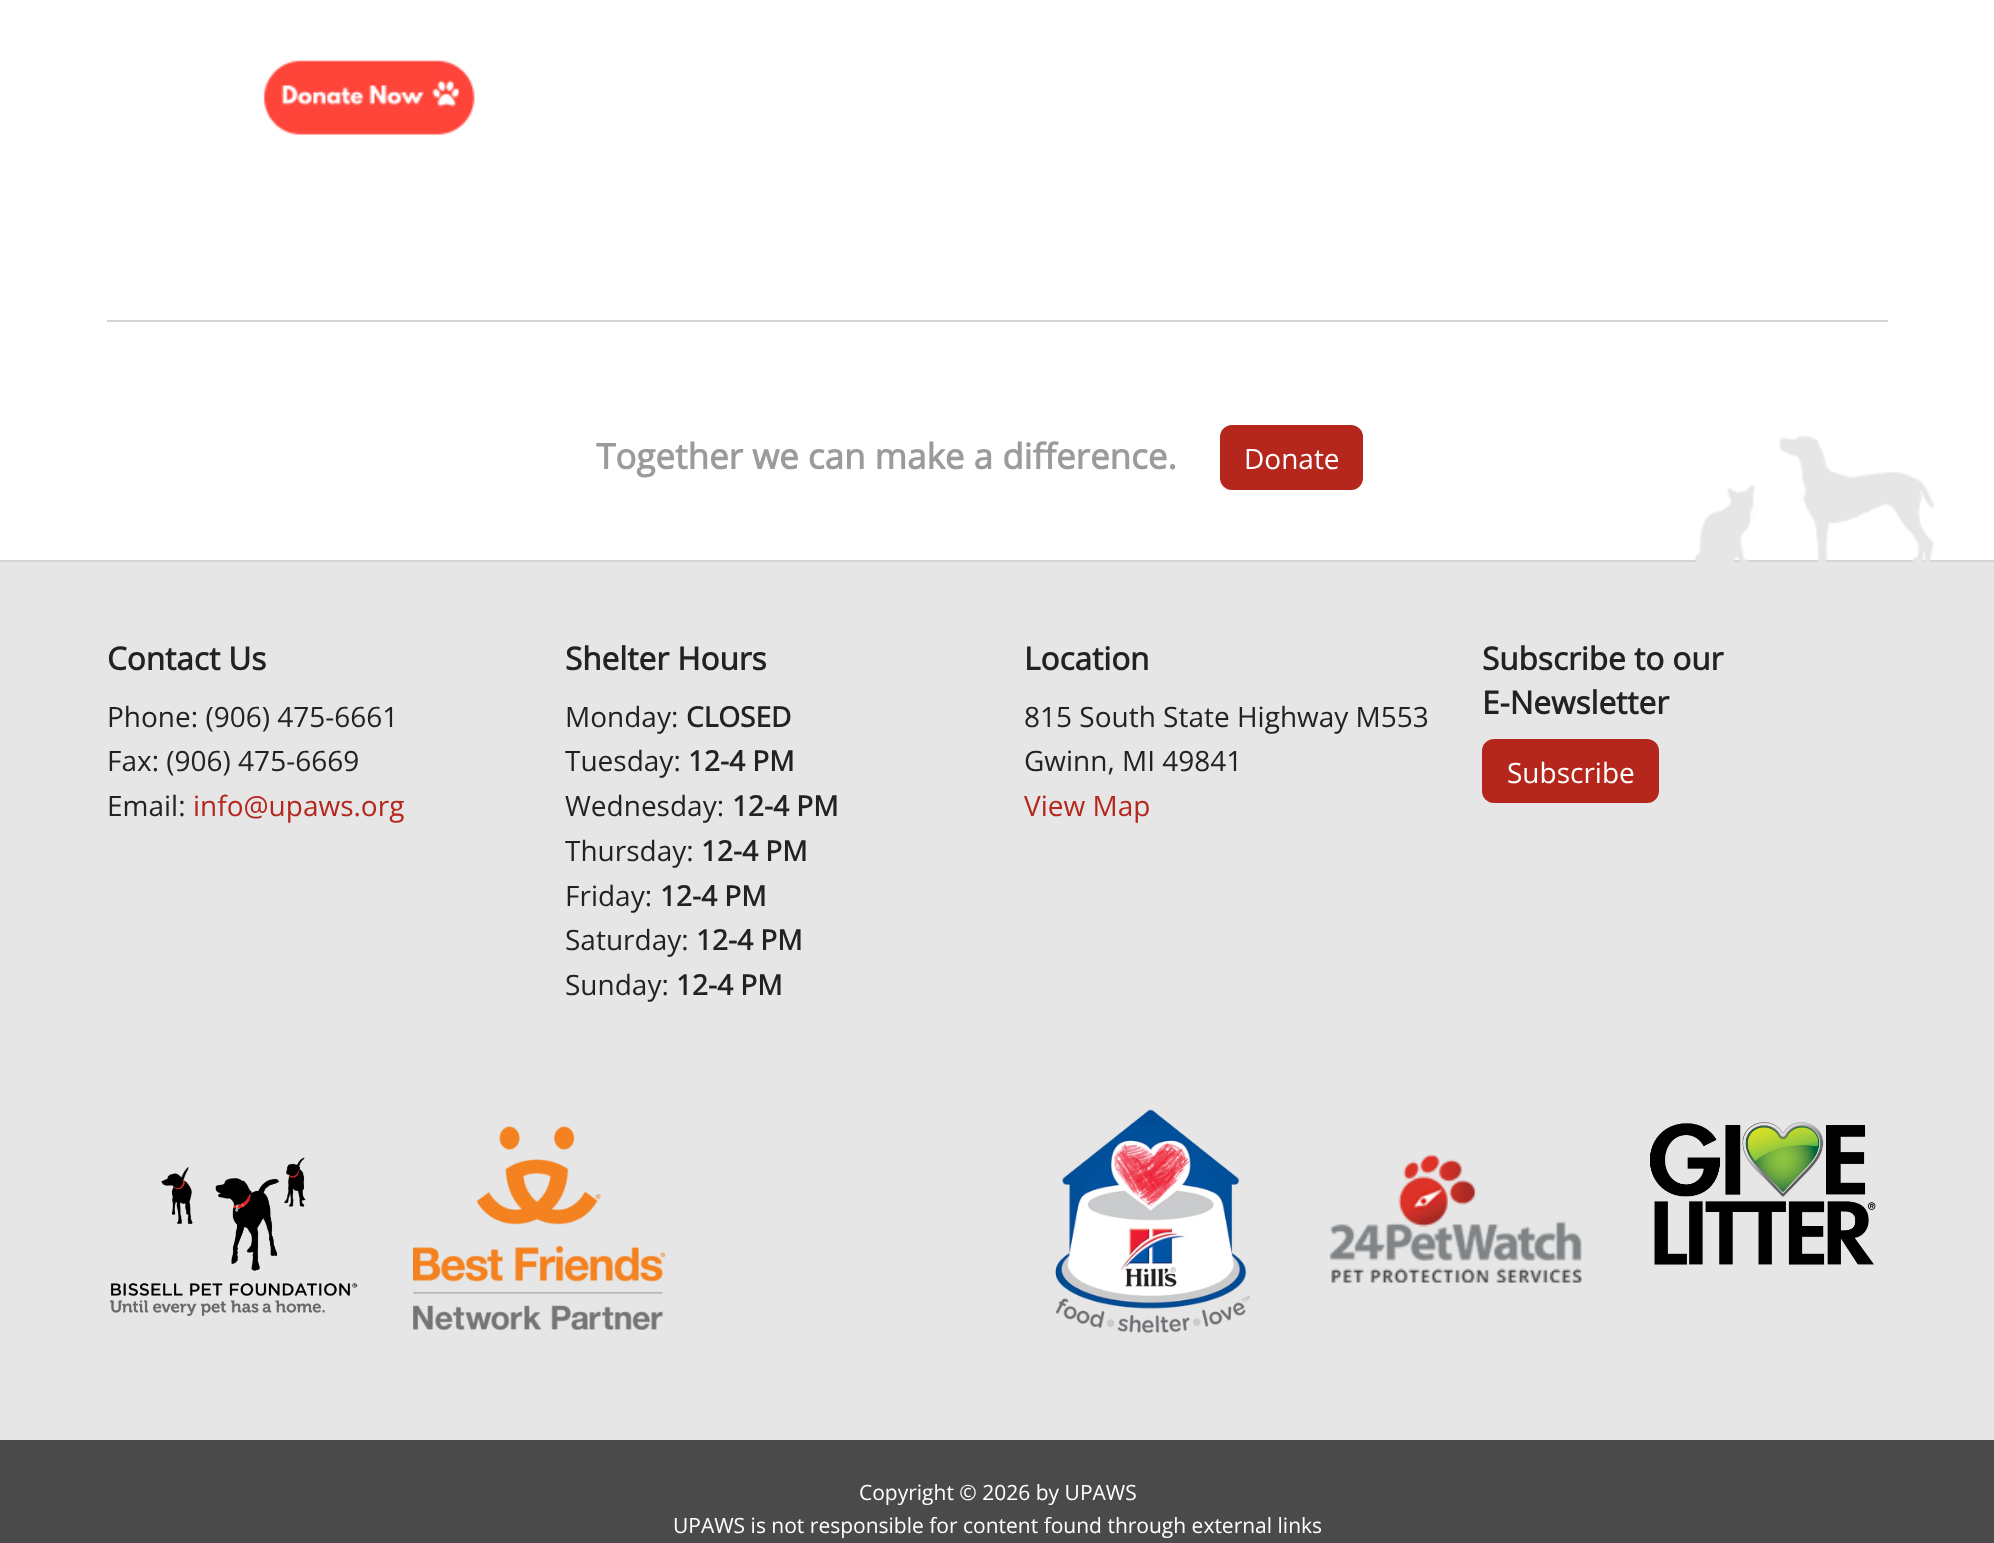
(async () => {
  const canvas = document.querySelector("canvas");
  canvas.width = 1994;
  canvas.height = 1543;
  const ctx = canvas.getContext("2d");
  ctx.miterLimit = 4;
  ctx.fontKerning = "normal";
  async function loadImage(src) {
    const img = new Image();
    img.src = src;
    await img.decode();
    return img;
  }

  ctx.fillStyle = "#ffffff";
  ctx.fillRect(0, 0, 1994, 1543);
  ctx.drawImage(await loadImage("img/1.png"), 263, 59, 212, 76);
  ctx.fillStyle = "#d4d4d4";
  ctx.fillRect(107, 320, 1781, 2);
  ctx.fillRect(0, 560, 1994, 2);
  ctx.fillStyle = "#b5261c";
  ctx.beginPath();
  ctx.roundRect(1220, 425, 143, 65, 12);
  ctx.fill();
  ctx.fillStyle = "#e6e6e6";
  ctx.fillRect(0, 562, 1994, 878);
  ctx.drawImage(await loadImage("img/2.png"), 1694, 435, 240, 127);
  ctx.fillStyle = "#b5261c";
  ctx.beginPath();
  ctx.roundRect(1482, 739, 177, 64, 12);
  ctx.fill();
  ctx.drawImage(await loadImage("img/3.png"), 110, 1157, 248, 159);
  ctx.drawImage(await loadImage("img/4.png"), 413, 1126, 252, 204);
  ctx.drawImage(await loadImage("img/5.png"), 1055, 1109, 196, 224);
  ctx.drawImage(await loadImage("img/6.png"), 1330, 1154, 252, 129);
  ctx.drawImage(await loadImage("img/7.png"), 1650, 1122, 226, 143);
  ctx.fillStyle = "#4a4a4a";
  ctx.fillRect(0, 1440, 1994, 103);
  ctx.font = "bold 35px Open Sans";
  ctx.fillStyle = "#9b9b9b";
  ctx.fillText("Together we can make a difference.", 596, 469);
  ctx.font = "28px Open Sans";
  ctx.fillStyle = "#ffffff";
  ctx.fillText("Donate", 1244, 469);
  ctx.font = "bold 31.5px Open Sans";
  ctx.fillStyle = "#222222";
  ctx.fillText("Contact Us", 107, 670);
  ctx.font = "28px Open Sans";
  for (const [text, x, y] of [
    ["Phone: (906) 475-6661", 107, 727],
    ["Fax: (906) 475-6669", 107, 771],
    ["Email:", 107, 816],
  ]) {
    ctx.fillText(text, x, y);
  }
  ctx.fillStyle = "#b5261c";
  ctx.fillText("info@upaws.org", 193, 816);
  ctx.font = "bold 31.5px Open Sans";
  ctx.fillStyle = "#222222";
  ctx.fillText("Shelter Hours", 565, 670);
  ctx.font = "28px Open Sans";
  ctx.fillText("Monday:", 565, 727);
  ctx.font = "bold 28px Open Sans";
  ctx.fillText("CLOSED", 686, 727);
  ctx.font = "28px Open Sans";
  ctx.fillText("Tuesday:", 565, 771);
  ctx.font = "bold 28px Open Sans";
  ctx.fillText("12-4 PM", 688, 771);
  ctx.font = "28px Open Sans";
  ctx.fillText("Wednesday:", 565, 816);
  ctx.font = "bold 28px Open Sans";
  ctx.fillText("12-4 PM", 732, 816);
  ctx.font = "28px Open Sans";
  ctx.fillText("Thursday:", 565, 861);
  ctx.font = "bold 28px Open Sans";
  ctx.fillText("12-4 PM", 701, 861);
  ctx.font = "28px Open Sans";
  ctx.fillText("Friday:", 565, 906);
  ctx.font = "bold 28px Open Sans";
  ctx.fillText("12-4 PM", 660, 906);
  ctx.font = "28px Open Sans";
  ctx.fillText("Saturday:", 565, 950);
  ctx.font = "bold 28px Open Sans";
  ctx.fillText("12-4 PM", 696, 950);
  ctx.font = "28px Open Sans";
  ctx.fillText("Sunday:", 565, 995);
  ctx.font = "bold 28px Open Sans";
  ctx.fillText("12-4 PM", 676, 995);
  ctx.font = "bold 31.5px Open Sans";
  ctx.fillText("Location", 1024, 670);
  ctx.font = "28px Open Sans";
  ctx.fillText("815 South State Highway M553", 1024, 727);
  ctx.fillText("Gwinn, MI 49841", 1024, 771);
  ctx.fillStyle = "#b5261c";
  ctx.fillText("View Map", 1024, 816);
  ctx.font = "bold 31.5px Open Sans";
  ctx.fillStyle = "#222222";
  ctx.fillText("Subscribe to our", 1482, 670);
  ctx.fillText("E-Newsletter", 1482, 714);
  ctx.font = "28px Open Sans";
  ctx.fillStyle = "#ffffff";
  ctx.fillText("Subscribe", 1507, 783);
  ctx.font = "21px Open Sans";
  ctx.fillText("Copyright © 2026 by UPAWS", 859, 1500);
  ctx.fillText("UPAWS is not responsible for content found through external links", 673, 1533);
})();
